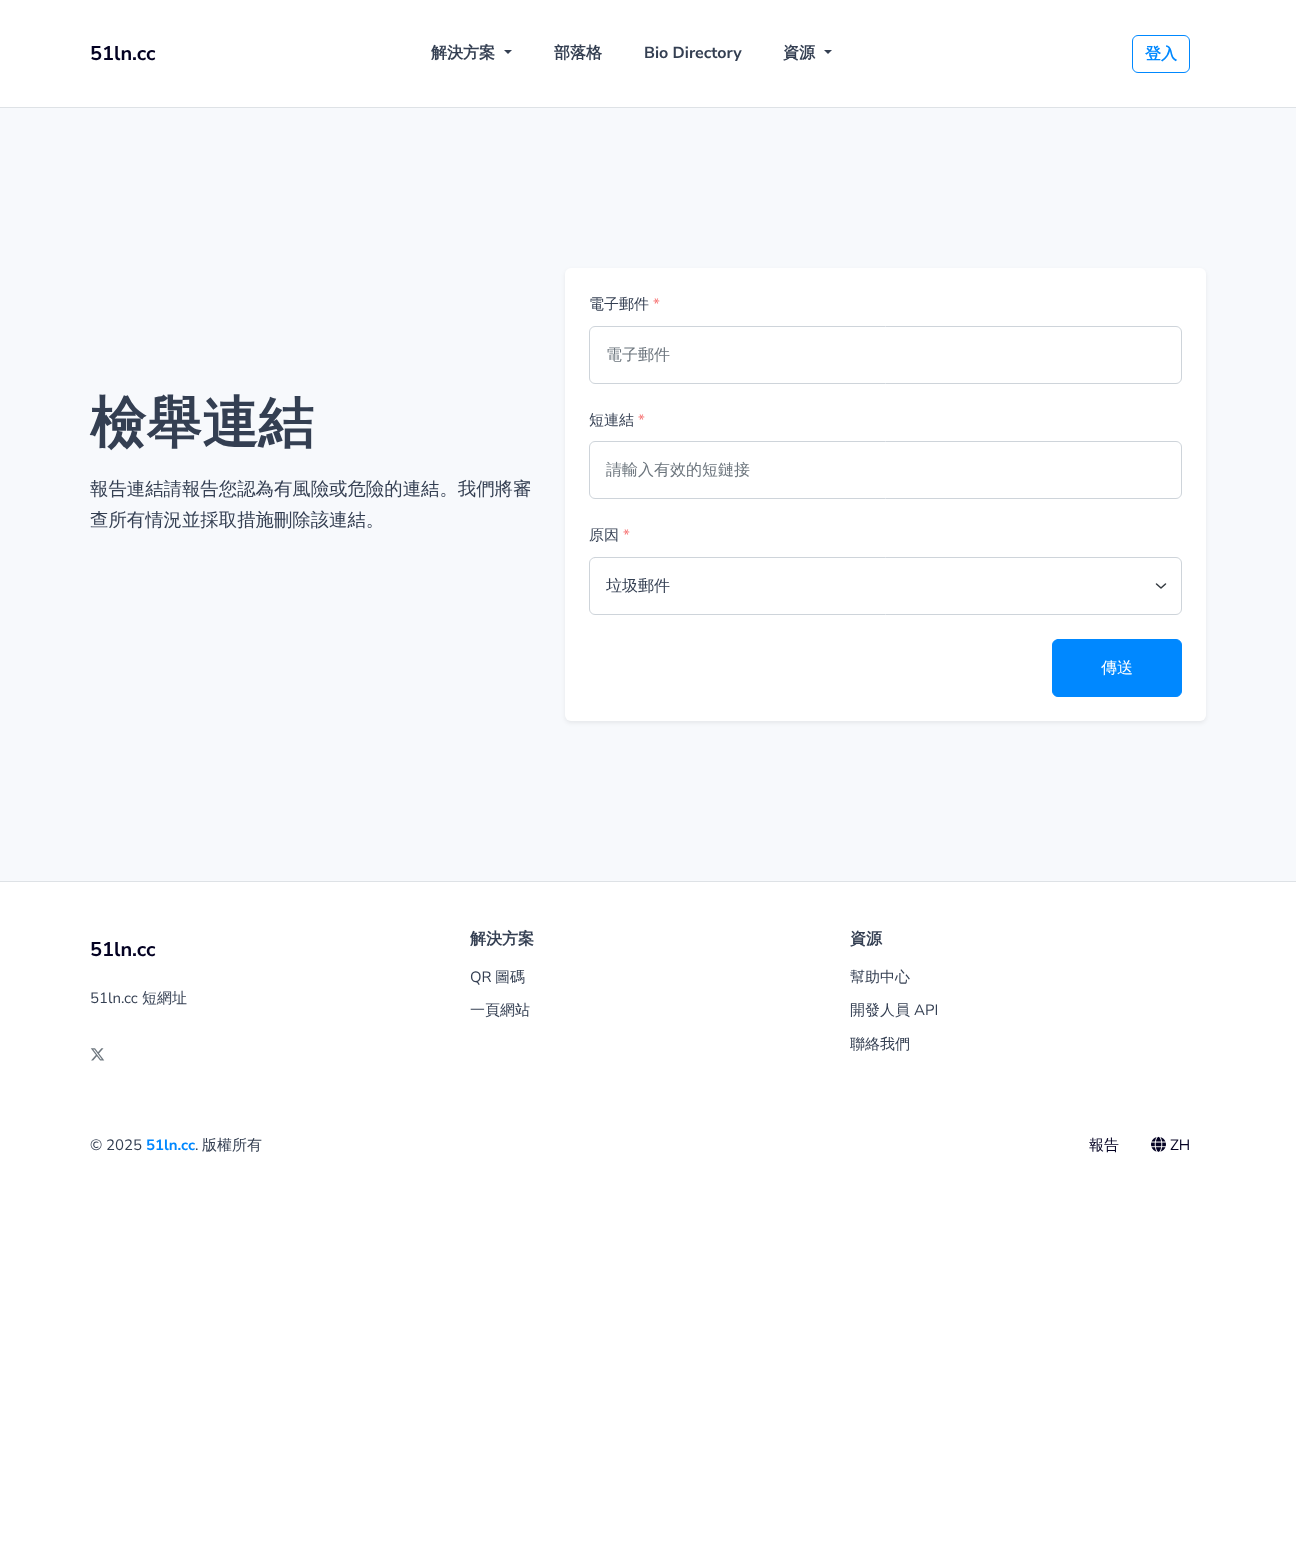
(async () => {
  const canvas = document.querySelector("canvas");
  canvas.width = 1296;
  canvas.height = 1543;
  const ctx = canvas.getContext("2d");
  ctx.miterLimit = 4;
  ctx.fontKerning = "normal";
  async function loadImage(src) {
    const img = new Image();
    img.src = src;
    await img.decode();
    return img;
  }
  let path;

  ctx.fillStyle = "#ffffff";
  ctx.fillRect(0, 0, 1296, 1543);
  ctx.fillStyle = "#343f52";
  path = new Path2D("M504 50H512L508 54Z");
  ctx.fill(path);
  path = new Path2D("M824 50H832L828 54Z");
  ctx.fill(path);
  ctx.beginPath();
  ctx.roundRect(1132.5, 35.5, 57, 37, 5.5);
  ctx.strokeStyle = "#0088ff";
  ctx.stroke();
  for (const [x, y, w, h, color] of [
    [0, 108, 1296, 773, "#f7f9fc"],
    [0, 107, 1296, 1, "#dee2e6"],
    [0, 881, 1296, 1, "#dee2e6"],
  ]) {
    ctx.fillStyle = color;
    ctx.fillRect(x, y, w, h);
  }
  ctx.fillStyle = "rgba(0, 0, 0, 0.07)";
  ctx.filter = "blur(2px)";
  ctx.beginPath();
  ctx.roundRect(565, 270, 641, 453, 6);
  ctx.fill();
  ctx.filter = "none";
  ctx.fillStyle = "#ffffff";
  ctx.beginPath();
  ctx.roundRect(565, 268, 641, 453, 6);
  ctx.fill();
  ctx.beginPath();
  ctx.roundRect(589.5, 326.5, 592, 57, 5.5);
  ctx.strokeStyle = "#ced4da";
  ctx.stroke();
  ctx.beginPath();
  ctx.roundRect(589.5, 441.5, 592, 57, 5.5);
  ctx.stroke();
  path = new Path2D("M1156.5 584L1161 588L1165.5 584");
  ctx.strokeStyle = "#343a40";
  ctx.lineWidth = 1.5;
  ctx.lineCap = "round";
  ctx.lineJoin = "round";
  ctx.stroke(path);
  ctx.beginPath();
  ctx.roundRect(589.5, 557.5, 592, 57, 5.5);
  ctx.strokeStyle = "#ced4da";
  ctx.lineWidth = 1;
  ctx.lineJoin = "miter";
  ctx.stroke();
  ctx.fillStyle = "#0088ff";
  ctx.beginPath();
  ctx.roundRect(1052.5, 639.5, 129, 57, 5.5);
  ctx.fill();
  ctx.strokeStyle = "#0088ff";
  ctx.stroke();
  ctx.drawImage(await loadImage("img/1.png"), 90, 1048, 15, 13);
  ctx.drawImage(await loadImage("img/2.png"), 1151, 1136, 15, 16);
  ctx.font = "bold 20px Nunito Sans";
  ctx.fillStyle = "#030122";
  ctx.fillText("51ln.cc", 90, 60);
  ctx.font = "bold 16px WenQuanYi Zen Hei";
  ctx.fillStyle = "#343f52";
  ctx.fillText("解決方案", 431, 58);
  ctx.fillText("部落格", 554, 58);
  ctx.font = "bold 16px Nunito Sans";
  ctx.fillText("Bio Directory", 644, 58);
  ctx.font = "bold 16px WenQuanYi Zen Hei";
  ctx.fillText("資源", 783, 58);
  ctx.fillStyle = "#0088ff";
  ctx.fillText("登入", 1145, 59);
  ctx.font = "bold 56px WenQuanYi Zen Hei";
  ctx.fillStyle = "#343f52";
  ctx.fillText("檢舉連結", 90, 442);
  ctx.font = "500 18.4px WenQuanYi Zen Hei";
  ctx.fillText("報告連結請報告您認為有風險或危險的連結。我們將審", 90, 495);
  ctx.fillText("查所有情況並採取措施刪除該連結。", 90, 526);
  ctx.font = "500 15px WenQuanYi Zen Hei";
  ctx.fillText("電子郵件", 589, 309);
  ctx.font = "15px Nunito Sans";
  ctx.fillStyle = "#f77777";
  ctx.fillText("*", 653, 309);
  ctx.font = "500 16px WenQuanYi Zen Hei";
  ctx.fillStyle = "#6c757d";
  ctx.fillText("電子郵件", 606, 360);
  ctx.font = "500 15px WenQuanYi Zen Hei";
  ctx.fillStyle = "#343f52";
  ctx.fillText("短連結", 589, 425);
  ctx.font = "15px Nunito Sans";
  ctx.fillStyle = "#f77777";
  ctx.fillText("*", 638, 425);
  ctx.font = "500 16px WenQuanYi Zen Hei";
  ctx.fillStyle = "#6c757d";
  ctx.fillText("請輸入有效的短鏈接", 606, 475);
  ctx.font = "500 15px WenQuanYi Zen Hei";
  ctx.fillStyle = "#343f52";
  ctx.fillText("原因", 589, 540);
  ctx.font = "15px Nunito Sans";
  ctx.fillStyle = "#f77777";
  ctx.fillText("*", 623, 540);
  ctx.font = "500 16px WenQuanYi Zen Hei";
  ctx.fillStyle = "#343f52";
  ctx.fillText("垃圾郵件", 606, 591);
  ctx.fillStyle = "#ffffff";
  ctx.fillText("傳送", 1101, 673);
  ctx.font = "bold 20px Nunito Sans";
  ctx.fillStyle = "#030122";
  ctx.fillText("51ln.cc", 90, 956);
  ctx.font = "15px Nunito Sans";
  ctx.fillStyle = "#343f52";
  ctx.fillText("51ln.cc", 90, 1003);
  ctx.font = "500 15px WenQuanYi Zen Hei";
  ctx.fillText("短網址", 142, 1003);
  ctx.font = "bold 16px WenQuanYi Zen Hei";
  ctx.fillText("解決方案", 470, 944);
  ctx.font = "15px Nunito Sans";
  ctx.fillText("QR", 470, 982);
  ctx.font = "500 15px WenQuanYi Zen Hei";
  ctx.fillText("圖碼", 495, 982);
  ctx.fillText("一頁網站", 470, 1015);
  ctx.font = "bold 16px WenQuanYi Zen Hei";
  ctx.fillText("資源", 850, 944);
  ctx.font = "500 15px WenQuanYi Zen Hei";
  ctx.fillText("幫助中心", 850, 982);
  ctx.fillText("開發人員", 850, 1015);
  ctx.font = "15px Nunito Sans";
  ctx.fillText("API", 914, 1015);
  ctx.font = "500 15px WenQuanYi Zen Hei";
  ctx.fillText("聯絡我們", 850, 1049);
  ctx.font = "15px Nunito Sans";
  ctx.fillText("© 2025", 90, 1150);
  ctx.font = "bold 15px Nunito Sans";
  ctx.fillStyle = "#0088ff";
  ctx.fillText("51ln.cc", 146, 1150);
  ctx.font = "15px Nunito Sans";
  ctx.fillStyle = "#343f52";
  ctx.fillText(".", 195, 1150);
  ctx.font = "500 15px WenQuanYi Zen Hei";
  ctx.fillText("版權所有", 202, 1150);
  ctx.fillStyle = "#030122";
  ctx.fillText("報告", 1089, 1150);
  ctx.font = "15px Nunito Sans";
  ctx.fillText("ZH", 1170, 1150);
})();
